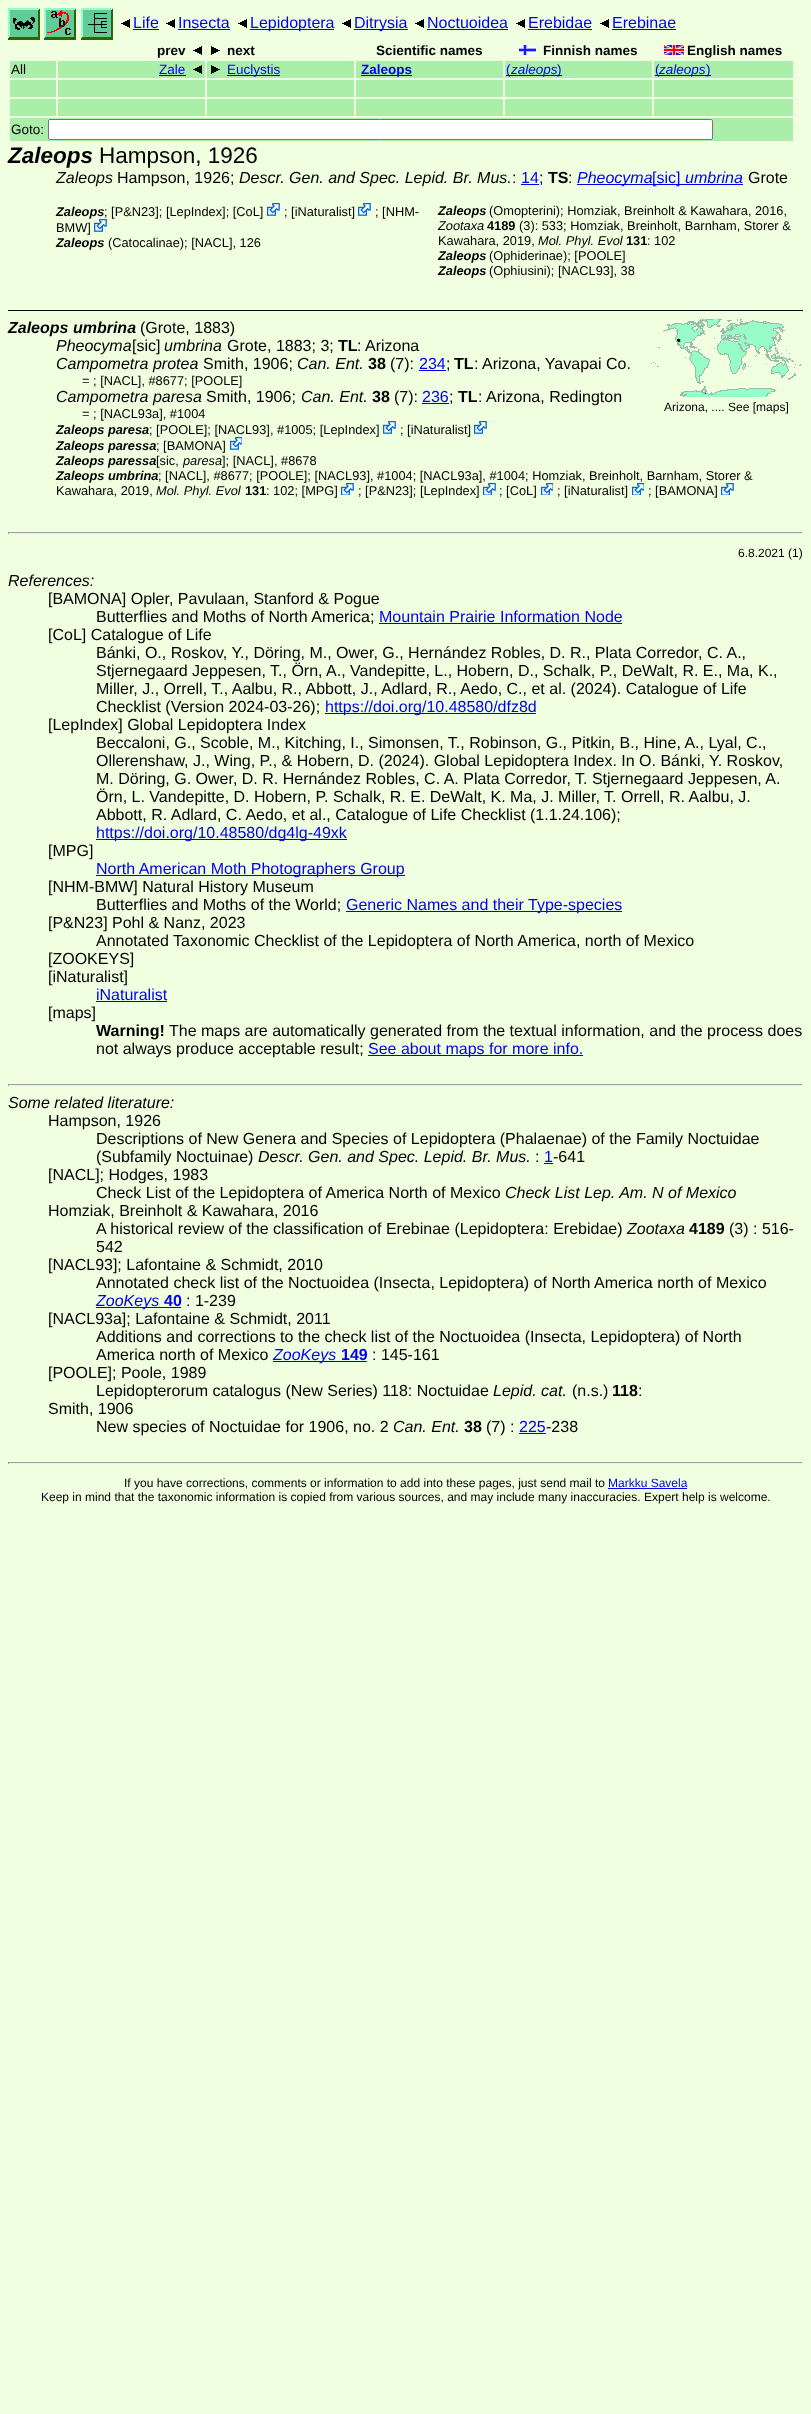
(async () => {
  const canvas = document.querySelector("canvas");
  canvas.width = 811;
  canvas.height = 2414;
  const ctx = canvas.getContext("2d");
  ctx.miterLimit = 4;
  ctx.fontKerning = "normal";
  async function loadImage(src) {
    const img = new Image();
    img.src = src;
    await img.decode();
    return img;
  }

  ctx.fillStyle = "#f0ffe0";
  ctx.fillRect(0, 0, 811, 2414);
  ctx.drawImage(await loadImage("img/1.png"), 8, 8, 32, 32);
  ctx.drawImage(await loadImage("img/2.png"), 44, 8, 32, 32);
  ctx.drawImage(await loadImage("img/3.png"), 81, 8, 32, 32);
  ctx.drawImage(await loadImage("img/4.png"), 121, 19, 9, 9);
  ctx.fillStyle = "#0000ee";
  ctx.fillRect(133, 29, 26, 1);
  ctx.drawImage(await loadImage("img/4.png"), 166, 19, 9, 9);
  ctx.fillRect(178, 29, 52, 1);
  ctx.drawImage(await loadImage("img/4.png"), 238, 19, 9, 9);
  ctx.fillRect(250, 29, 84, 1);
  ctx.drawImage(await loadImage("img/4.png"), 342, 19, 9, 9);
  ctx.fillRect(354, 29, 54, 1);
  ctx.drawImage(await loadImage("img/4.png"), 415, 19, 9, 9);
  ctx.fillRect(427, 29, 81, 1);
  ctx.drawImage(await loadImage("img/4.png"), 516, 19, 9, 9);
  ctx.fillRect(528, 29, 64, 1);
  ctx.drawImage(await loadImage("img/4.png"), 600, 19, 9, 9);
  ctx.fillRect(612, 29, 64, 1);
  ctx.drawImage(await loadImage("img/4.png"), 193, 46, 9, 9);
  ctx.drawImage(await loadImage("img/5.png"), 211, 46, 9, 9);
  ctx.drawImage(await loadImage("img/6.png"), 519, 45, 17, 10);
  ctx.drawImage(await loadImage("img/7.png"), 664, 45, 20, 10);
  for (const [x, y, w, h, color] of [
    [10, 61, 46, 17, "#aaeeaa"],
    [58, 61, 147, 17, "#aaeeaa"],
    [159, 75, 27, 1, "#0000ee"],
  ]) {
    ctx.fillStyle = color;
    ctx.fillRect(x, y, w, h);
  }
  ctx.drawImage(await loadImage("img/8.png"), 193, 65, 9, 9);
  ctx.fillStyle = "#aaeeaa";
  ctx.fillRect(207, 61, 147, 17);
  ctx.drawImage(await loadImage("img/9.png"), 211, 65, 9, 9);
  for (const [x, y, w, h, color] of [
    [227, 75, 53, 1, "#0000ee"],
    [356, 61, 147, 17, "#aaeeaa"],
    [361, 75, 51, 1, "#0000ee"],
    [505, 61, 147, 17, "#aaeeaa"],
    [506, 75, 51, 1, "#0000ee"],
    [557, 75, 5, 1, "#0000ee"],
    [654, 61, 139, 17, "#aaeeaa"],
    [655, 75, 4, 1, "#0000ee"],
    [659, 75, 52, 1, "#0000ee"],
    [10, 80, 46, 17, "#aaeeaa"],
    [58, 80, 147, 17, "#aaeeaa"],
    [207, 80, 147, 17, "#aaeeaa"],
    [356, 80, 147, 17, "#aaeeaa"],
    [505, 80, 147, 17, "#aaeeaa"],
    [654, 80, 139, 17, "#aaeeaa"],
    [10, 99, 46, 17, "#aaeeaa"],
    [58, 99, 147, 17, "#aaeeaa"],
    [207, 99, 147, 17, "#aaeeaa"],
    [356, 99, 147, 17, "#aaeeaa"],
    [505, 99, 147, 17, "#aaeeaa"],
    [654, 99, 139, 17, "#aaeeaa"],
    [10, 118, 783, 23, "#aaeeaa"],
  ]) {
    ctx.fillStyle = color;
    ctx.fillRect(x, y, w, h);
  }
  ctx.fillStyle = "#ffffff";
  ctx.beginPath();
  ctx.roundRect(48.5, 119.5, 664, 20, 1.5);
  ctx.fill();
  ctx.strokeStyle = "#767676";
  ctx.stroke();
  ctx.fillStyle = "#0000ee";
  ctx.fillRect(521, 184, 18, 1);
  ctx.fillRect(577, 184, 166, 1);
  ctx.drawImage(await loadImage("img/10.png"), 267, 203, 13, 13);
  ctx.drawImage(await loadImage("img/10.png"), 358, 203, 13, 13);
  ctx.drawImage(await loadImage("img/10.png"), 94, 219, 13, 13);
  for (const [x, y, w, h, color] of [
    [8, 310, 795, 1, "#000000"],
    [419, 370, 27, 1, "#0000ee"],
    [422, 403, 27, 1, "#0000ee"],
  ]) {
    ctx.fillStyle = color;
    ctx.fillRect(x, y, w, h);
  }
  ctx.drawImage(await loadImage("img/11.png"), 651, 319, 150, 78);
  ctx.drawImage(await loadImage("img/10.png"), 383, 421, 13, 13);
  ctx.drawImage(await loadImage("img/10.png"), 474, 421, 13, 13);
  ctx.drawImage(await loadImage("img/12.png"), 230, 437, 12, 13);
  ctx.drawImage(await loadImage("img/13.png"), 341, 483, 13, 12);
  ctx.drawImage(await loadImage("img/13.png"), 483, 483, 13, 12);
  ctx.drawImage(await loadImage("img/14.png"), 541, 483, 12, 12);
  ctx.drawImage(await loadImage("img/14.png"), 632, 483, 12, 12);
  ctx.drawImage(await loadImage("img/13.png"), 721, 483, 13, 12);
  for (const [x, y, w, h, color] of [
    [8, 532, 795, 1, "#9f9f9f"],
    [802, 532, 1, 2, "#eeeeee"],
    [8, 533, 795, 1, "#eeeeee"],
    [8, 532, 1, 2, "#9f9f9f"],
    [379, 623, 243, 1, "#0000ee"],
    [325, 713, 211, 1, "#0000ee"],
    [96, 839, 251, 1, "#0000ee"],
    [96, 875, 309, 1, "#0000ee"],
    [346, 911, 276, 1, "#0000ee"],
    [96, 1001, 71, 1, "#0000ee"],
    [368, 1055, 215, 1, "#0000ee"],
    [8, 1084, 795, 1, "#9f9f9f"],
    [802, 1084, 1, 2, "#eeeeee"],
    [8, 1085, 795, 1, "#eeeeee"],
    [8, 1084, 1, 2, "#9f9f9f"],
    [544, 1163, 9, 1, "#0000ee"],
    [96, 1307, 85, 1, "#0000ee"],
    [273, 1361, 94, 1, "#0000ee"],
    [519, 1433, 27, 1, "#0000ee"],
    [8, 1462, 795, 1, "#9f9f9f"],
    [802, 1462, 1, 2, "#eeeeee"],
    [8, 1463, 795, 1, "#eeeeee"],
    [8, 1462, 1, 2, "#9f9f9f"],
    [608, 1488, 79, 1, "#0000ee"],
  ]) {
    ctx.fillStyle = color;
    ctx.fillRect(x, y, w, h);
  }
  ctx.font = "16px Liberation Sans";
  for (const [text, x, y] of [
    ["Life", 133, 28],
    ["Insecta", 178, 28],
    ["Lepidoptera", 250, 28],
    ["Ditrysia", 354, 28],
    ["Noctuoidea", 427, 28],
    ["Erebidae", 528, 28],
    ["Erebinae", 612, 28],
  ]) {
    ctx.fillText(text, x, y);
  }
  ctx.font = "bold 13.5px Liberation Sans";
  ctx.fillStyle = "#000000";
  for (const [text, x, y] of [
    ["prev", 157, 55],
    ["next", 227, 55],
    ["Scientific names", 376, 55],
    ["Finnish names", 543, 55],
    ["English names", 687, 55],
  ]) {
    ctx.fillText(text, x, y);
  }
  ctx.font = "13.5px Liberation Sans";
  ctx.fillText("All", 11, 74);
  ctx.fillStyle = "#0000ee";
  ctx.fillText("Zale", 159, 74);
  ctx.fillText("Euclystis", 227, 74);
  ctx.font = "bold 13.5px Liberation Sans";
  ctx.fillText("Zaleops", 361, 74);
  ctx.font = "13.5px Liberation Sans";
  ctx.fillText("(", 506, 74);
  ctx.font = "italic 13.5px Liberation Sans";
  ctx.fillText("zaleops", 511, 74);
  ctx.font = "13.5px Liberation Sans";
  ctx.fillText(")", 557, 74);
  ctx.fillText("(", 655, 74);
  ctx.font = "italic 13.5px Liberation Sans";
  ctx.fillText("zaleops", 659, 74);
  ctx.font = "13.5px Liberation Sans";
  ctx.fillText(")", 706, 74);
  ctx.fillStyle = "#000000";
  ctx.fillText("Goto:", 11, 134);
  ctx.font = "italic bold 22.5px Liberation Sans";
  ctx.fillText("Zaleops", 8, 163);
  ctx.font = "22.5px Liberation Sans";
  ctx.fillText("Hampson, 1926", 99, 163);
  ctx.font = "italic 16px Liberation Sans";
  ctx.fillText("Zaleops", 56, 183);
  ctx.font = "16px Liberation Sans";
  ctx.fillText("Hampson, 1926;", 117, 183);
  ctx.font = "italic 16px Liberation Sans";
  ctx.fillText("Descr. Gen. and Spec. Lepid. Br. Mus.", 239, 183);
  ctx.font = "16px Liberation Sans";
  ctx.fillText(":", 512, 183);
  ctx.fillStyle = "#0000ee";
  ctx.fillText("14", 521, 183);
  ctx.fillStyle = "#000000";
  ctx.fillText(";", 539, 183);
  ctx.font = "bold 16px Liberation Sans";
  ctx.fillText("TS", 548, 183);
  ctx.font = "16px Liberation Sans";
  ctx.fillText(":", 568, 183);
  ctx.font = "italic 16px Liberation Sans";
  ctx.fillStyle = "#0000ee";
  ctx.fillText("Pheocyma", 577, 183);
  ctx.font = "16px Liberation Sans";
  ctx.fillText("[sic]", 652, 183);
  ctx.font = "italic 16px Liberation Sans";
  ctx.fillText("umbrina", 685, 183);
  ctx.font = "16px Liberation Sans";
  ctx.fillStyle = "#000000";
  ctx.fillText("Grote", 748, 183);
  ctx.font = "italic bold 12.8px Liberation Sans";
  ctx.fillText("Zaleops", 56, 216);
  ctx.font = "12.8px Liberation Sans";
  for (const [text, x, y] of [
    ["; [P&N23]; [LepIndex]; [CoL]", 104, 216],
    ["; [iNaturalist]", 284, 216],
    ["; [NHM-", 375, 216],
    ["BMW]", 56, 232],
  ]) {
    ctx.fillText(text, x, y);
  }
  ctx.font = "italic bold 12.8px Liberation Sans";
  ctx.fillText("Zaleops", 438, 215);
  ctx.font = "12.8px Liberation Sans";
  ctx.fillText("(Omopterini); Homziak, Breinholt & Kawahara, 2016,", 489, 215);
  ctx.font = "italic 12.8px Liberation Sans";
  ctx.fillText("Zootaxa", 438, 230);
  ctx.font = "bold 12.8px Liberation Sans";
  ctx.fillText("4189", 487, 230);
  ctx.font = "12.8px Liberation Sans";
  ctx.fillText("(3): 533; Homziak, Breinholt, Barnham, Storer &", 519, 230);
  ctx.fillText("Kawahara, 2019,", 438, 245);
  ctx.font = "italic 12.8px Liberation Sans";
  ctx.fillText("Mol. Phyl. Evol", 538, 245);
  ctx.font = "bold 12.8px Liberation Sans";
  ctx.fillText("131", 626, 245);
  ctx.font = "12.8px Liberation Sans";
  ctx.fillText(": 102", 647, 245);
  ctx.font = "italic bold 12.8px Liberation Sans";
  ctx.fillText("Zaleops", 56, 247);
  ctx.font = "12.8px Liberation Sans";
  ctx.fillText("(Catocalinae); [NACL], 126", 108, 247);
  ctx.font = "italic bold 12.8px Liberation Sans";
  ctx.fillText("Zaleops", 438, 260);
  ctx.font = "12.8px Liberation Sans";
  ctx.fillText("(Ophiderinae); [POOLE]", 489, 260);
  ctx.font = "italic bold 12.8px Liberation Sans";
  ctx.fillText("Zaleops", 438, 275);
  ctx.font = "12.8px Liberation Sans";
  ctx.fillText("(Ophiusini); [NACL93], 38", 489, 275);
  ctx.font = "italic bold 16px Liberation Sans";
  ctx.fillText("Zaleops umbrina", 8, 333);
  ctx.font = "16px Liberation Sans";
  ctx.fillText("(Grote, 1883)", 140, 333);
  ctx.font = "italic 16px Liberation Sans";
  ctx.fillText("Pheocyma", 56, 351);
  ctx.font = "16px Liberation Sans";
  ctx.fillText("[sic]", 132, 351);
  ctx.font = "italic 16px Liberation Sans";
  ctx.fillText("umbrina", 164, 351);
  ctx.font = "16px Liberation Sans";
  ctx.fillText("Grote, 1883; 3;", 227, 351);
  ctx.font = "bold 16px Liberation Sans";
  ctx.fillText("TL", 338, 351);
  ctx.font = "16px Liberation Sans";
  ctx.fillText(": Arizona", 357, 351);
  ctx.font = "italic 16px Liberation Sans";
  ctx.fillText("Campometra protea", 56, 369);
  ctx.font = "16px Liberation Sans";
  ctx.fillText("Smith, 1906;", 203, 369);
  ctx.font = "italic 16px Liberation Sans";
  ctx.fillText("Can. Ent.", 297, 369);
  ctx.font = "bold 16px Liberation Sans";
  ctx.fillText("38", 368, 369);
  ctx.font = "16px Liberation Sans";
  ctx.fillText("(7):", 390, 369);
  ctx.fillStyle = "#0000ee";
  ctx.fillText("234", 419, 369);
  ctx.fillStyle = "#000000";
  ctx.fillText(";", 446, 369);
  ctx.font = "bold 16px Liberation Sans";
  ctx.fillText("TL", 454, 369);
  ctx.font = "16px Liberation Sans";
  ctx.fillText(": Arizona, Yavapai Co.", 474, 369);
  ctx.font = "12.8px Liberation Sans";
  ctx.fillText("= ; [NACL], #8677; [POOLE]", 82, 385);
  ctx.font = "italic 16px Liberation Sans";
  ctx.fillText("Campometra paresa", 56, 402);
  ctx.font = "16px Liberation Sans";
  ctx.fillText("Smith, 1906;", 206, 402);
  ctx.font = "italic 16px Liberation Sans";
  ctx.fillText("Can. Ent.", 301, 402);
  ctx.font = "bold 16px Liberation Sans";
  ctx.fillText("38", 372, 402);
  ctx.font = "16px Liberation Sans";
  ctx.fillText("(7):", 394, 402);
  ctx.fillStyle = "#0000ee";
  ctx.fillText("236", 422, 402);
  ctx.fillStyle = "#000000";
  ctx.fillText(";", 449, 402);
  ctx.font = "bold 16px Liberation Sans";
  ctx.fillText("TL", 458, 402);
  ctx.font = "16px Liberation Sans";
  ctx.fillText(": Arizona, Redington", 478, 402);
  ctx.font = "12.8px Liberation Sans";
  ctx.fillText("= ; [NACL93a], #1004", 82, 418);
  ctx.font = "12px Liberation Sans";
  ctx.fillText("Arizona, .... See [maps]", 664, 411);
  ctx.font = "italic bold 12.8px Liberation Sans";
  ctx.fillText("Zaleops paresa", 56, 434);
  ctx.font = "12.8px Liberation Sans";
  ctx.fillText("; [POOLE]; [NACL93], #1005; [LepIndex]", 149, 434);
  ctx.fillText("; [iNaturalist]", 400, 434);
  ctx.font = "italic bold 12.8px Liberation Sans";
  ctx.fillText("Zaleops paressa", 56, 450);
  ctx.font = "12.8px Liberation Sans";
  ctx.fillText("; [BAMONA]", 156, 450);
  ctx.font = "italic bold 12.8px Liberation Sans";
  ctx.fillText("Zaleops paressa", 56, 465);
  ctx.font = "12.8px Liberation Sans";
  ctx.fillText("[sic,", 156, 465);
  ctx.font = "italic 12.8px Liberation Sans";
  ctx.fillText("paresa", 183, 465);
  ctx.font = "12.8px Liberation Sans";
  ctx.fillText("]; [NACL], #8678", 222, 465);
  ctx.font = "italic bold 12.8px Liberation Sans";
  ctx.fillText("Zaleops umbrina", 56, 480);
  ctx.font = "12.8px Liberation Sans";
  ctx.fillText("; [NACL], #8677; [POOLE]; [NACL93], #1004; [NACL93a], #1004; Homziak, Breinholt, Barnham, Storer &", 158, 480);
  ctx.fillText("Kawahara, 2019,", 56, 495);
  ctx.font = "italic 12.8px Liberation Sans";
  ctx.fillText("Mol. Phyl. Evol", 156, 495);
  ctx.font = "bold 12.8px Liberation Sans";
  ctx.fillText("131", 245, 495);
  ctx.font = "12.8px Liberation Sans";
  for (const [text, x, y] of [
    [": 102; [MPG]", 266, 495],
    ["; [P&N23]; [LepIndex]", 358, 495],
    ["; [CoL]", 499, 495],
    ["; [iNaturalist]", 557, 495],
    ["; [BAMONA]", 648, 495],
  ]) {
    ctx.fillText(text, x, y);
  }
  ctx.font = "12px Liberation Sans";
  ctx.fillText("6.8.2021 (1)", 738, 557);
  ctx.font = "italic 16px Liberation Sans";
  ctx.fillText("References:", 8, 586);
  ctx.font = "16px Liberation Sans";
  ctx.fillText("[BAMONA] Opler, Pavulaan, Stanford & Pogue", 48, 604);
  ctx.fillText("Butterflies and Moths of North America;", 96, 622);
  ctx.fillStyle = "#0000ee";
  ctx.fillText("Mountain Prairie Information Node", 379, 622);
  ctx.fillStyle = "#000000";
  for (const [text, x, y] of [
    ["[CoL] Catalogue of Life", 48, 640],
    ["Bánki, O., Roskov, Y., Döring, M., Ower, G., Hernández Robles, D. R., Plata Corredor, C. A.,", 96, 658],
    ["Stjernegaard Jeppesen, T., Örn, A., Vandepitte, L., Hobern, D., Schalk, P., DeWalt, R. E., Ma, K.,", 96, 676],
    ["Miller, J., Orrell, T., Aalbu, R., Abbott, J., Adlard, R., Aedo, C., et al. (2024). Catalogue of Life", 96, 694],
    ["Checklist (Version 2024-03-26);", 96, 712],
  ]) {
    ctx.fillText(text, x, y);
  }
  ctx.fillStyle = "#0000ee";
  ctx.fillText("https://doi.org/10.48580/dfz8d", 325, 712);
  ctx.fillStyle = "#000000";
  for (const [text, x, y] of [
    ["[LepIndex] Global Lepidoptera Index", 48, 730],
    ["Beccaloni, G., Scoble, M., Kitching, I., Simonsen, T., Robinson, G., Pitkin, B., Hine, A., Lyal, C.,", 96, 748],
    ["Ollerenshaw, J., Wing, P., & Hobern, D. (2024). Global Lepidoptera Index. In O. Bánki, Y. Roskov,", 96, 766],
    ["M. Döring, G. Ower, D. R. Hernández Robles, C. A. Plata Corredor, T. Stjernegaard Jeppesen, A.", 96, 784],
    ["Örn, L. Vandepitte, D. Hobern, P. Schalk, R. E. DeWalt, K. Ma, J. Miller, T. Orrell, R. Aalbu, J.", 96, 802],
    ["Abbott, R. Adlard, C. Aedo, et al., Catalogue of Life Checklist (1.1.24.106);", 96, 820],
  ]) {
    ctx.fillText(text, x, y);
  }
  ctx.fillStyle = "#0000ee";
  ctx.fillText("https://doi.org/10.48580/dg4lg-49xk", 96, 838);
  ctx.fillStyle = "#000000";
  ctx.fillText("[MPG]", 48, 856);
  ctx.fillStyle = "#0000ee";
  ctx.fillText("North American Moth Photographers Group", 96, 874);
  ctx.fillStyle = "#000000";
  ctx.fillText("[NHM-BMW] Natural History Museum", 48, 892);
  ctx.fillText("Butterflies and Moths of the World;", 96, 910);
  ctx.fillStyle = "#0000ee";
  ctx.fillText("Generic Names and their Type-species", 346, 910);
  ctx.fillStyle = "#000000";
  for (const [text, x, y] of [
    ["[P&N23] Pohl & Nanz, 2023", 48, 928],
    ["Annotated Taxonomic Checklist of the Lepidoptera of North America, north of Mexico", 96, 946],
    ["[ZOOKEYS]", 48, 964],
    ["[iNaturalist]", 48, 982],
  ]) {
    ctx.fillText(text, x, y);
  }
  ctx.fillStyle = "#0000ee";
  ctx.fillText("iNaturalist", 96, 1000);
  ctx.fillStyle = "#000000";
  ctx.fillText("[maps]", 48, 1018);
  ctx.font = "bold 16px Liberation Sans";
  ctx.fillText("Warning!", 96, 1036);
  ctx.font = "16px Liberation Sans";
  ctx.fillText("The maps are automatically generated from the textual information, and the process does", 169, 1036);
  ctx.fillText("not always produce acceptable result;", 96, 1054);
  ctx.fillStyle = "#0000ee";
  ctx.fillText("See about maps for more info.", 368, 1054);
  ctx.font = "italic 16px Liberation Sans";
  ctx.fillStyle = "#000000";
  ctx.fillText("Some related literature:", 8, 1108);
  ctx.font = "16px Liberation Sans";
  for (const [text, x, y] of [
    ["Hampson, 1926", 48, 1126],
    ["Descriptions of New Genera and Species of Lepidoptera (Phalaenae) of the Family Noctuidae", 96, 1144],
    ["(Subfamily Noctuinae)", 96, 1162],
  ]) {
    ctx.fillText(text, x, y);
  }
  ctx.font = "italic 16px Liberation Sans";
  ctx.fillText("Descr. Gen. and Spec. Lepid. Br. Mus.", 258, 1162);
  ctx.font = "16px Liberation Sans";
  ctx.fillText(":", 535, 1162);
  ctx.fillStyle = "#0000ee";
  ctx.fillText("1", 544, 1162);
  ctx.fillStyle = "#000000";
  for (const [text, x, y] of [
    ["-641", 553, 1162],
    ["[NACL]; Hodges, 1983", 48, 1180],
    ["Check List of the Lepidoptera of America North of Mexico", 96, 1198],
  ]) {
    ctx.fillText(text, x, y);
  }
  ctx.font = "italic 16px Liberation Sans";
  ctx.fillText("Check List Lep. Am. N of Mexico", 505, 1198);
  ctx.font = "16px Liberation Sans";
  ctx.fillText("Homziak, Breinholt & Kawahara, 2016", 48, 1216);
  ctx.fillText("A historical review of the classification of Erebinae (Lepidoptera: Erebidae)", 96, 1234);
  ctx.font = "italic 16px Liberation Sans";
  ctx.fillText("Zootaxa", 627, 1234);
  ctx.font = "bold 16px Liberation Sans";
  ctx.fillText("4189", 689, 1234);
  ctx.font = "16px Liberation Sans";
  for (const [text, x, y] of [
    ["(3) : 516-", 729, 1234],
    ["542", 96, 1252],
    ["[NACL93]; Lafontaine & Schmidt, 2010", 48, 1270],
    ["Annotated check list of the Noctuoidea (Insecta, Lepidoptera) of North America north of Mexico", 96, 1288],
  ]) {
    ctx.fillText(text, x, y);
  }
  ctx.font = "italic 16px Liberation Sans";
  ctx.fillStyle = "#0000ee";
  ctx.fillText("ZooKeys", 96, 1306);
  ctx.font = "bold 16px Liberation Sans";
  ctx.fillText("40", 164, 1306);
  ctx.font = "16px Liberation Sans";
  ctx.fillStyle = "#000000";
  for (const [text, x, y] of [
    [": 1-239", 186, 1306],
    ["[NACL93a]; Lafontaine & Schmidt, 2011", 48, 1324],
    ["Additions and corrections to the check list of the Noctuoidea (Insecta, Lepidoptera) of North", 96, 1342],
    ["America north of Mexico", 96, 1360],
  ]) {
    ctx.fillText(text, x, y);
  }
  ctx.font = "italic 16px Liberation Sans";
  ctx.fillStyle = "#0000ee";
  ctx.fillText("ZooKeys", 273, 1360);
  ctx.font = "bold 16px Liberation Sans";
  ctx.fillText("149", 341, 1360);
  ctx.font = "16px Liberation Sans";
  ctx.fillStyle = "#000000";
  for (const [text, x, y] of [
    [": 145-161", 372, 1360],
    ["[POOLE]; Poole, 1989", 48, 1378],
    ["Lepidopterorum catalogus (New Series) 118: Noctuidae", 96, 1396],
  ]) {
    ctx.fillText(text, x, y);
  }
  ctx.font = "italic 16px Liberation Sans";
  ctx.fillText("Lepid. cat.", 493, 1396);
  ctx.font = "16px Liberation Sans";
  ctx.fillText("(n.s.)", 572, 1396);
  ctx.font = "bold 16px Liberation Sans";
  ctx.fillText("118", 612, 1396);
  ctx.font = "16px Liberation Sans";
  for (const [text, x, y] of [
    [":", 638, 1396],
    ["Smith, 1906", 48, 1414],
    ["New species of Noctuidae for 1906, no. 2", 96, 1432],
  ]) {
    ctx.fillText(text, x, y);
  }
  ctx.font = "italic 16px Liberation Sans";
  ctx.fillText("Can. Ent.", 393, 1432);
  ctx.font = "bold 16px Liberation Sans";
  ctx.fillText("38", 464, 1432);
  ctx.font = "16px Liberation Sans";
  ctx.fillText("(7) :", 486, 1432);
  ctx.fillStyle = "#0000ee";
  ctx.fillText("225", 519, 1432);
  ctx.fillStyle = "#000000";
  ctx.fillText("-238", 546, 1432);
  ctx.font = "12px Liberation Sans";
  ctx.fillText("If you have corrections, comments or information to add into these pages, just send mail to", 124, 1487);
  ctx.fillStyle = "#0000ee";
  ctx.fillText("Markku Savela", 608, 1487);
  ctx.fillStyle = "#000000";
  ctx.fillText("Keep in mind that the taxonomic information is copied from various sources, and may include many inaccuracies. Expert help is welcome.", 41, 1501);
})();
